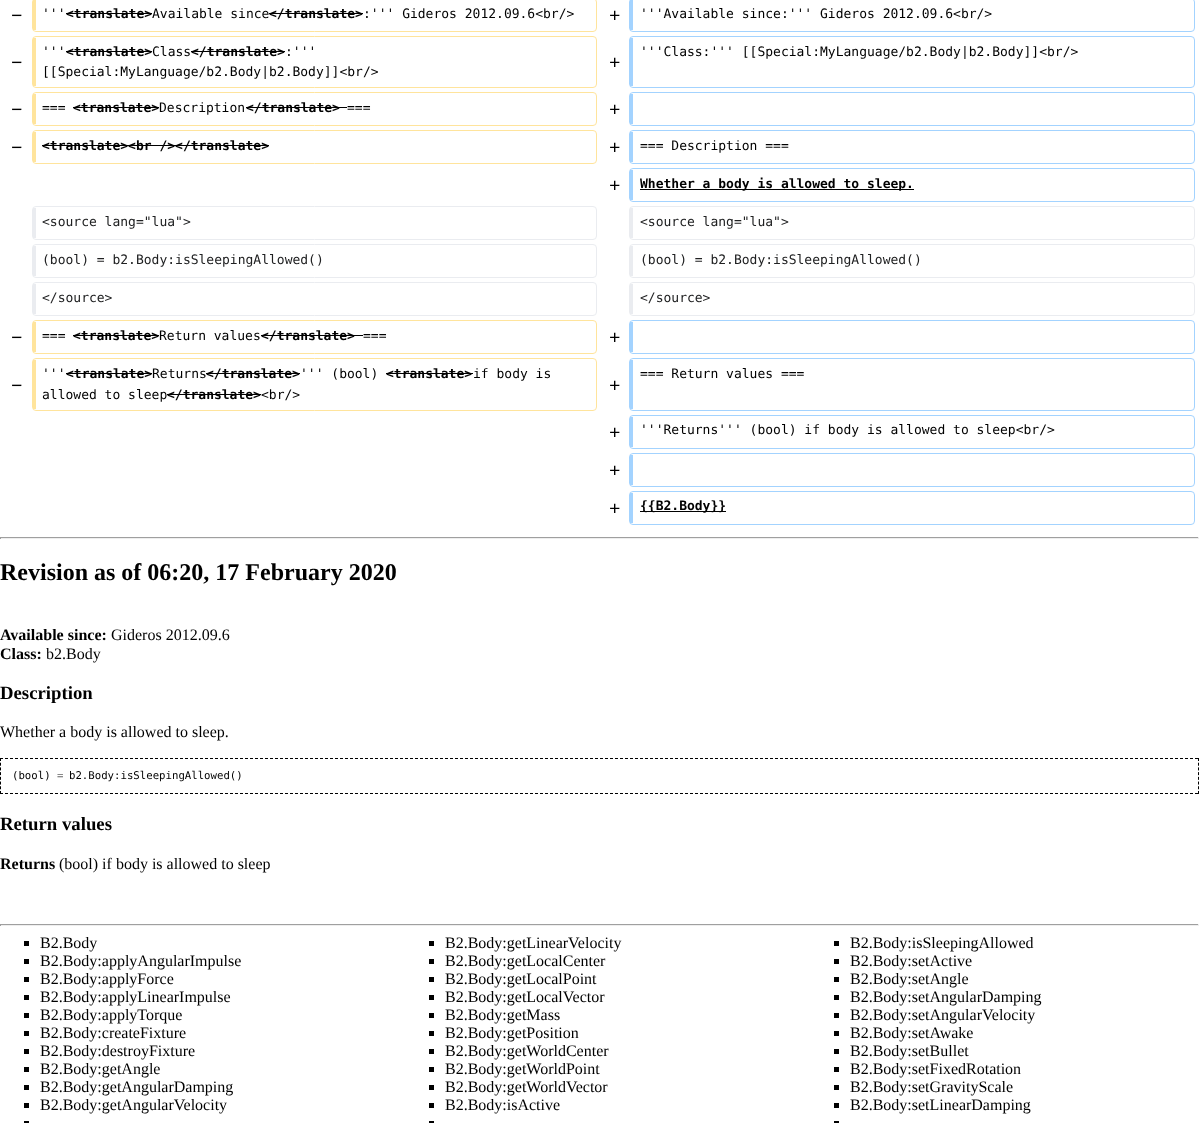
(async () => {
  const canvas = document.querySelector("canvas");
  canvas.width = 1199;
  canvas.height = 1123;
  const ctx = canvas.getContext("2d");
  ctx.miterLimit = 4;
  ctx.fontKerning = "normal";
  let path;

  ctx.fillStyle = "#ffffff";
  ctx.fillRect(0, 0, 1199, 1123);
  ctx.beginPath();
  ctx.roundRect(32.5, -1.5, 564, 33, 3.5);
  ctx.strokeStyle = "#ffe49c";
  ctx.stroke();
  for (const [x, y, w, h, color] of [
    [33, 0, 3, 30, "#ffe49c"],
    [66, 13, 86, 1, "#000000"],
    [269, 13, 94, 1, "#000000"],
  ]) {
    ctx.fillStyle = color;
    ctx.fillRect(x, y, w, h);
  }
  ctx.beginPath();
  ctx.roundRect(629.5, -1.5, 565, 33, 3.5);
  ctx.strokeStyle = "#a3d3ff";
  ctx.stroke();
  ctx.fillStyle = "#a3d3ff";
  ctx.fillRect(630, 0, 3, 30);
  ctx.beginPath();
  ctx.roundRect(32.5, 36.5, 564, 51, 3.5);
  ctx.strokeStyle = "#ffe49c";
  ctx.stroke();
  for (const [x, y, w, h, color] of [
    [33, 38, 3, 48, "#ffe49c"],
    [66, 51, 86, 1, "#000000"],
    [191, 51, 94, 1, "#000000"],
  ]) {
    ctx.fillStyle = color;
    ctx.fillRect(x, y, w, h);
  }
  ctx.beginPath();
  ctx.roundRect(629.5, 36.5, 565, 51, 3.5);
  ctx.strokeStyle = "#a3d3ff";
  ctx.stroke();
  ctx.fillStyle = "#a3d3ff";
  ctx.fillRect(630, 38, 3, 48);
  ctx.beginPath();
  ctx.roundRect(32.5, 92.5, 564, 33, 3.5);
  ctx.strokeStyle = "#ffe49c";
  ctx.stroke();
  for (const [x, y, w, h, color] of [
    [33, 94, 3, 30, "#ffe49c"],
    [73, 107, 86, 1, "#000000"],
    [246, 107, 101, 1, "#000000"],
  ]) {
    ctx.fillStyle = color;
    ctx.fillRect(x, y, w, h);
  }
  ctx.beginPath();
  ctx.roundRect(629.5, 92.5, 565, 33, 3.5);
  ctx.strokeStyle = "#a3d3ff";
  ctx.stroke();
  ctx.fillStyle = "#a3d3ff";
  ctx.fillRect(630, 94, 3, 30);
  ctx.beginPath();
  ctx.roundRect(32.5, 130.5, 564, 33, 3.5);
  ctx.strokeStyle = "#ffe49c";
  ctx.stroke();
  ctx.fillStyle = "#ffe49c";
  ctx.fillRect(33, 132, 3, 30);
  ctx.fillStyle = "#000000";
  ctx.fillRect(42, 145, 227, 1);
  ctx.beginPath();
  ctx.roundRect(629.5, 130.5, 565, 33, 3.5);
  ctx.strokeStyle = "#a3d3ff";
  ctx.stroke();
  ctx.fillStyle = "#a3d3ff";
  ctx.fillRect(630, 132, 3, 30);
  ctx.beginPath();
  ctx.roundRect(629.5, 168.5, 565, 33, 3.5);
  ctx.stroke();
  ctx.fillRect(630, 170, 3, 30);
  ctx.fillStyle = "#000000";
  ctx.fillRect(640, 189, 274, 1);
  ctx.beginPath();
  ctx.roundRect(32.5, 206.5, 564, 33, 3.5);
  ctx.strokeStyle = "#eaecf0";
  ctx.stroke();
  ctx.fillStyle = "#eaecf0";
  ctx.fillRect(33, 208, 3, 30);
  ctx.beginPath();
  ctx.roundRect(629.5, 206.5, 565, 33, 3.5);
  ctx.stroke();
  ctx.fillRect(630, 208, 3, 30);
  ctx.beginPath();
  ctx.roundRect(32.5, 244.5, 564, 33, 3.5);
  ctx.stroke();
  ctx.fillRect(33, 246, 3, 30);
  ctx.beginPath();
  ctx.roundRect(629.5, 244.5, 565, 33, 3.5);
  ctx.stroke();
  ctx.fillRect(630, 246, 3, 30);
  ctx.beginPath();
  ctx.roundRect(32.5, 282.5, 564, 33, 3.5);
  ctx.stroke();
  ctx.fillRect(33, 284, 3, 30);
  ctx.beginPath();
  ctx.roundRect(629.5, 282.5, 565, 33, 3.5);
  ctx.stroke();
  ctx.fillRect(630, 284, 3, 30);
  ctx.beginPath();
  ctx.roundRect(32.5, 320.5, 564, 33, 3.5);
  ctx.strokeStyle = "#ffe49c";
  ctx.stroke();
  for (const [x, y, w, h, color] of [
    [33, 322, 3, 30, "#ffe49c"],
    [73, 335, 86, 1, "#000000"],
    [261, 335, 102, 1, "#000000"],
  ]) {
    ctx.fillStyle = color;
    ctx.fillRect(x, y, w, h);
  }
  ctx.beginPath();
  ctx.roundRect(629.5, 320.5, 565, 33, 3.5);
  ctx.strokeStyle = "#a3d3ff";
  ctx.stroke();
  ctx.fillStyle = "#a3d3ff";
  ctx.fillRect(630, 322, 3, 30);
  ctx.beginPath();
  ctx.roundRect(32.5, 358.5, 564, 52, 3.5);
  ctx.strokeStyle = "#ffe49c";
  ctx.stroke();
  for (const [x, y, w, h, color] of [
    [33, 360, 3, 49, "#ffe49c"],
    [66, 373, 86, 1, "#000000"],
    [206, 373, 94, 1, "#000000"],
    [386, 373, 87, 1, "#000000"],
    [167, 394, 94, 1, "#000000"],
  ]) {
    ctx.fillStyle = color;
    ctx.fillRect(x, y, w, h);
  }
  ctx.beginPath();
  ctx.roundRect(629.5, 358.5, 565, 52, 3.5);
  ctx.strokeStyle = "#a3d3ff";
  ctx.stroke();
  ctx.fillStyle = "#a3d3ff";
  ctx.fillRect(630, 360, 3, 49);
  ctx.beginPath();
  ctx.roundRect(629.5, 415.5, 565, 33, 3.5);
  ctx.stroke();
  ctx.fillRect(630, 417, 3, 30);
  ctx.beginPath();
  ctx.roundRect(629.5, 453.5, 565, 33, 3.5);
  ctx.stroke();
  ctx.fillRect(630, 455, 3, 30);
  ctx.beginPath();
  ctx.roundRect(629.5, 491.5, 565, 33, 3.5);
  ctx.stroke();
  for (const [x, y, w, h, color] of [
    [630, 493, 3, 30, "#a3d3ff"],
    [640, 511, 86, 1, "#000000"],
    [0, 537, 1199, 1, "#9f9f9f"],
    [1198, 537, 1, 2, "#eeeeee"],
    [0, 538, 1199, 1, "#eeeeee"],
    [0, 537, 1, 2, "#9f9f9f"],
  ]) {
    ctx.fillStyle = color;
    ctx.fillRect(x, y, w, h);
  }
  path = new Path2D("M0 758.5H1199");
  ctx.strokeStyle = "#000000";
  ctx.setLineDash([3, 2]);
  ctx.stroke(path);
  path = new Path2D("M1198.5 758V794");
  ctx.setLineDash([3, 1.71]);
  ctx.stroke(path);
  path = new Path2D("M0 793.5H1199");
  ctx.setLineDash([3, 2]);
  ctx.stroke(path);
  path = new Path2D("M.5 758V794");
  ctx.setLineDash([3, 1.71]);
  ctx.stroke(path);
  for (const [x, y, w, h, color] of [
    [0, 924, 1199, 1, "#9f9f9f"],
    [1198, 924, 1, 2, "#eeeeee"],
    [0, 925, 1199, 1, "#eeeeee"],
    [0, 924, 1, 2, "#9f9f9f"],
    [24, 941, 5, 5, "#000000"],
    [429, 941, 5, 5, "#000000"],
    [834, 941, 5, 5, "#000000"],
    [24, 959, 5, 5, "#000000"],
    [429, 959, 5, 5, "#000000"],
    [834, 959, 5, 5, "#000000"],
    [24, 977, 5, 5, "#000000"],
    [429, 977, 5, 5, "#000000"],
    [834, 977, 5, 5, "#000000"],
    [24, 995, 5, 5, "#000000"],
    [429, 995, 5, 5, "#000000"],
    [834, 995, 5, 5, "#000000"],
    [24, 1013, 5, 5, "#000000"],
    [429, 1013, 5, 5, "#000000"],
    [834, 1013, 5, 5, "#000000"],
    [24, 1031, 5, 5, "#000000"],
    [429, 1031, 5, 5, "#000000"],
    [834, 1031, 5, 5, "#000000"],
    [24, 1049, 5, 5, "#000000"],
    [429, 1049, 5, 5, "#000000"],
    [834, 1049, 5, 5, "#000000"],
    [24, 1067, 5, 5, "#000000"],
    [429, 1067, 5, 5, "#000000"],
    [834, 1067, 5, 5, "#000000"],
    [24, 1085, 5, 5, "#000000"],
    [429, 1085, 5, 5, "#000000"],
    [834, 1085, 5, 5, "#000000"],
    [24, 1103, 5, 5, "#000000"],
    [429, 1103, 5, 5, "#000000"],
    [834, 1103, 5, 5, "#000000"],
    [24, 1121, 5, 2, "#000000"],
    [429, 1121, 5, 2, "#000000"],
    [834, 1121, 5, 2, "#000000"],
  ]) {
    ctx.fillStyle = color;
    ctx.fillRect(x, y, w, h);
  }
  ctx.font = "bold 20px Liberation Serif";
  ctx.fillText("−", 11, 22);
  ctx.font = "13px DejaVu Sans Mono";
  ctx.fillText("'''", 42, 18);
  ctx.font = "bold 13px DejaVu Sans Mono";
  ctx.fillText("<translate>", 66, 18);
  ctx.font = "13px DejaVu Sans Mono";
  ctx.fillText("Available since", 152, 18);
  ctx.font = "bold 13px DejaVu Sans Mono";
  ctx.fillText("<\/translate>", 269, 18);
  ctx.font = "13px DejaVu Sans Mono";
  ctx.fillText(":''' Gideros 2012.09.6<br/>", 363, 18);
  ctx.font = "bold 20px Liberation Serif";
  ctx.fillText("+", 609, 22);
  ctx.font = "13px DejaVu Sans Mono";
  ctx.fillText("'''Available since:''' Gideros 2012.09.6<br/>", 640, 18);
  ctx.fillText("'''", 42, 56);
  ctx.font = "bold 13px DejaVu Sans Mono";
  ctx.fillText("<translate>", 66, 56);
  ctx.font = "13px DejaVu Sans Mono";
  ctx.fillText("Class", 152, 56);
  ctx.font = "bold 13px DejaVu Sans Mono";
  ctx.fillText("<\/translate>", 191, 56);
  ctx.font = "13px DejaVu Sans Mono";
  for (const [text, x, y] of [
    [":'''", 285, 56],
    ["[[Special:MyLanguage/b2.Body|b2.Body]]<br/>", 42, 76],
    ["'''Class:''' [[Special:MyLanguage/b2.Body|b2.Body]]<br/>", 640, 56],
  ]) {
    ctx.fillText(text, x, y);
  }
  ctx.font = "bold 20px Liberation Serif";
  for (const [text, x, y] of [
    ["−", 11, 69],
    ["+", 609, 69],
    ["−", 11, 116],
  ]) {
    ctx.fillText(text, x, y);
  }
  ctx.font = "13px DejaVu Sans Mono";
  ctx.fillText("===", 42, 112);
  ctx.font = "bold 13px DejaVu Sans Mono";
  ctx.fillText("<translate>", 73, 112);
  ctx.font = "13px DejaVu Sans Mono";
  ctx.fillText("Description", 159, 112);
  ctx.font = "bold 13px DejaVu Sans Mono";
  ctx.fillText("<\/translate>", 246, 112);
  ctx.font = "13px DejaVu Sans Mono";
  ctx.fillText("===", 347, 112);
  ctx.font = "bold 20px Liberation Serif";
  ctx.fillText("+", 609, 116);
  ctx.fillText("−", 11, 154);
  ctx.font = "bold 13px DejaVu Sans Mono";
  ctx.fillText("<translate><br /><\/translate>", 42, 150);
  ctx.font = "bold 20px Liberation Serif";
  ctx.fillText("+", 609, 154);
  ctx.font = "13px DejaVu Sans Mono";
  ctx.fillText("=== Description ===", 640, 150);
  ctx.font = "bold 20px Liberation Serif";
  ctx.fillText("+", 609, 192);
  ctx.font = "bold 13px DejaVu Sans Mono";
  ctx.fillText("Whether a body is allowed to sleep.", 640, 188);
  ctx.font = "13px DejaVu Sans Mono";
  ctx.fillStyle = "#202122";
  for (const [text, x, y] of [
    ["<source lang=\"lua\">", 42, 226],
    ["<source lang=\"lua\">", 640, 226],
    ["(bool) = b2.Body:isSleepingAllowed()", 42, 264],
    ["(bool) = b2.Body:isSleepingAllowed()", 640, 264],
    ["<\/source>", 42, 302],
    ["<\/source>", 640, 302],
  ]) {
    ctx.fillText(text, x, y);
  }
  ctx.font = "bold 20px Liberation Serif";
  ctx.fillStyle = "#000000";
  ctx.fillText("−", 11, 344);
  ctx.font = "13px DejaVu Sans Mono";
  ctx.fillText("===", 42, 340);
  ctx.font = "bold 13px DejaVu Sans Mono";
  ctx.fillText("<translate>", 73, 340);
  ctx.font = "13px DejaVu Sans Mono";
  ctx.fillText("Return values", 159, 340);
  ctx.font = "bold 13px DejaVu Sans Mono";
  ctx.fillText("<\/translate>", 261, 340);
  ctx.font = "13px DejaVu Sans Mono";
  ctx.fillText("===", 363, 340);
  ctx.font = "bold 20px Liberation Serif";
  ctx.fillText("+", 609, 344);
  ctx.font = "13px DejaVu Sans Mono";
  ctx.fillText("'''", 42, 378);
  ctx.font = "bold 13px DejaVu Sans Mono";
  ctx.fillText("<translate>", 66, 378);
  ctx.font = "13px DejaVu Sans Mono";
  ctx.fillText("Returns", 152, 378);
  ctx.font = "bold 13px DejaVu Sans Mono";
  ctx.fillText("<\/translate>", 206, 378);
  ctx.font = "13px DejaVu Sans Mono";
  ctx.fillText("''' (bool)", 300, 378);
  ctx.font = "bold 13px DejaVu Sans Mono";
  ctx.fillText("<translate>", 386, 378);
  ctx.font = "13px DejaVu Sans Mono";
  ctx.fillText("if body is", 473, 378);
  ctx.fillText("allowed to sleep", 42, 399);
  ctx.font = "bold 13px DejaVu Sans Mono";
  ctx.fillText("<\/translate>", 167, 399);
  ctx.font = "13px DejaVu Sans Mono";
  ctx.fillText("<br/>", 261, 399);
  ctx.fillText("=== Return values ===", 640, 378);
  ctx.font = "bold 20px Liberation Serif";
  for (const [text, x, y] of [
    ["−", 11, 392],
    ["+", 609, 392],
    ["+", 609, 439],
  ]) {
    ctx.fillText(text, x, y);
  }
  ctx.font = "13px DejaVu Sans Mono";
  ctx.fillText("'''Returns''' (bool) if body is allowed to sleep<br/>", 640, 434);
  ctx.font = "bold 20px Liberation Serif";
  ctx.fillText("+", 609, 477);
  ctx.fillText("+", 609, 515);
  ctx.font = "bold 13px DejaVu Sans Mono";
  ctx.fillText("{{B2.Body}}", 640, 510);
  ctx.font = "bold 24px Liberation Serif";
  ctx.fillText("Revision as of 06:20, 17 February 2020", 0, 580);
  ctx.font = "bold 16px Liberation Serif";
  ctx.fillText("Available since:", 0, 640);
  ctx.font = "16px Liberation Serif";
  ctx.fillText("Gideros 2012.09.6", 111, 640);
  ctx.font = "bold 16px Liberation Serif";
  ctx.fillText("Class:", 0, 659);
  ctx.font = "16px Liberation Serif";
  ctx.fillText("b2.Body", 46, 659);
  ctx.font = "bold 18.75px Liberation Serif";
  ctx.fillText("Description", 0, 699);
  ctx.font = "16px Liberation Serif";
  ctx.fillText("Whether a body is allowed to sleep.", 0, 737);
  ctx.font = "10.7px DejaVu Sans Mono";
  ctx.fillText("(bool)", 12, 779);
  ctx.fillStyle = "#666666";
  ctx.fillText("=", 57, 779);
  ctx.fillStyle = "#000000";
  ctx.fillText("b2.Body:isSleepingAllowed()", 69, 779);
  ctx.font = "bold 18.75px Liberation Serif";
  ctx.fillText("Return values", 0, 830);
  ctx.font = "bold 16px Liberation Serif";
  ctx.fillText("Returns", 0, 869);
  ctx.font = "16px Liberation Serif";
  for (const [text, x, y] of [
    ["(bool) if body is allowed to sleep", 59, 869],
    ["B2.Body", 40, 948],
    ["B2.Body:getLinearVelocity", 445, 948],
    ["B2.Body:isSleepingAllowed", 850, 948],
    ["B2.Body:applyAngularImpulse", 40, 966],
    ["B2.Body:getLocalCenter", 445, 966],
    ["B2.Body:setActive", 850, 966],
    ["B2.Body:applyForce", 40, 984],
    ["B2.Body:getLocalPoint", 445, 984],
    ["B2.Body:setAngle", 850, 984],
    ["B2.Body:applyLinearImpulse", 40, 1002],
    ["B2.Body:getLocalVector", 445, 1002],
    ["B2.Body:setAngularDamping", 850, 1002],
    ["B2.Body:applyTorque", 40, 1020],
    ["B2.Body:getMass", 445, 1020],
    ["B2.Body:setAngularVelocity", 850, 1020],
    ["B2.Body:createFixture", 40, 1038],
    ["B2.Body:getPosition", 445, 1038],
    ["B2.Body:setAwake", 850, 1038],
    ["B2.Body:destroyFixture", 40, 1056],
    ["B2.Body:getWorldCenter", 445, 1056],
    ["B2.Body:setBullet", 850, 1056],
    ["B2.Body:getAngle", 40, 1074],
    ["B2.Body:getWorldPoint", 445, 1074],
    ["B2.Body:setFixedRotation", 850, 1074],
    ["B2.Body:getAngularDamping", 40, 1092],
    ["B2.Body:getWorldVector", 445, 1092],
    ["B2.Body:setGravityScale", 850, 1092],
    ["B2.Body:getAngularVelocity", 40, 1110],
    ["B2.Body:isActive", 445, 1110],
    ["B2.Body:setLinearDamping", 850, 1110],
  ]) {
    ctx.fillText(text, x, y);
  }
})();
